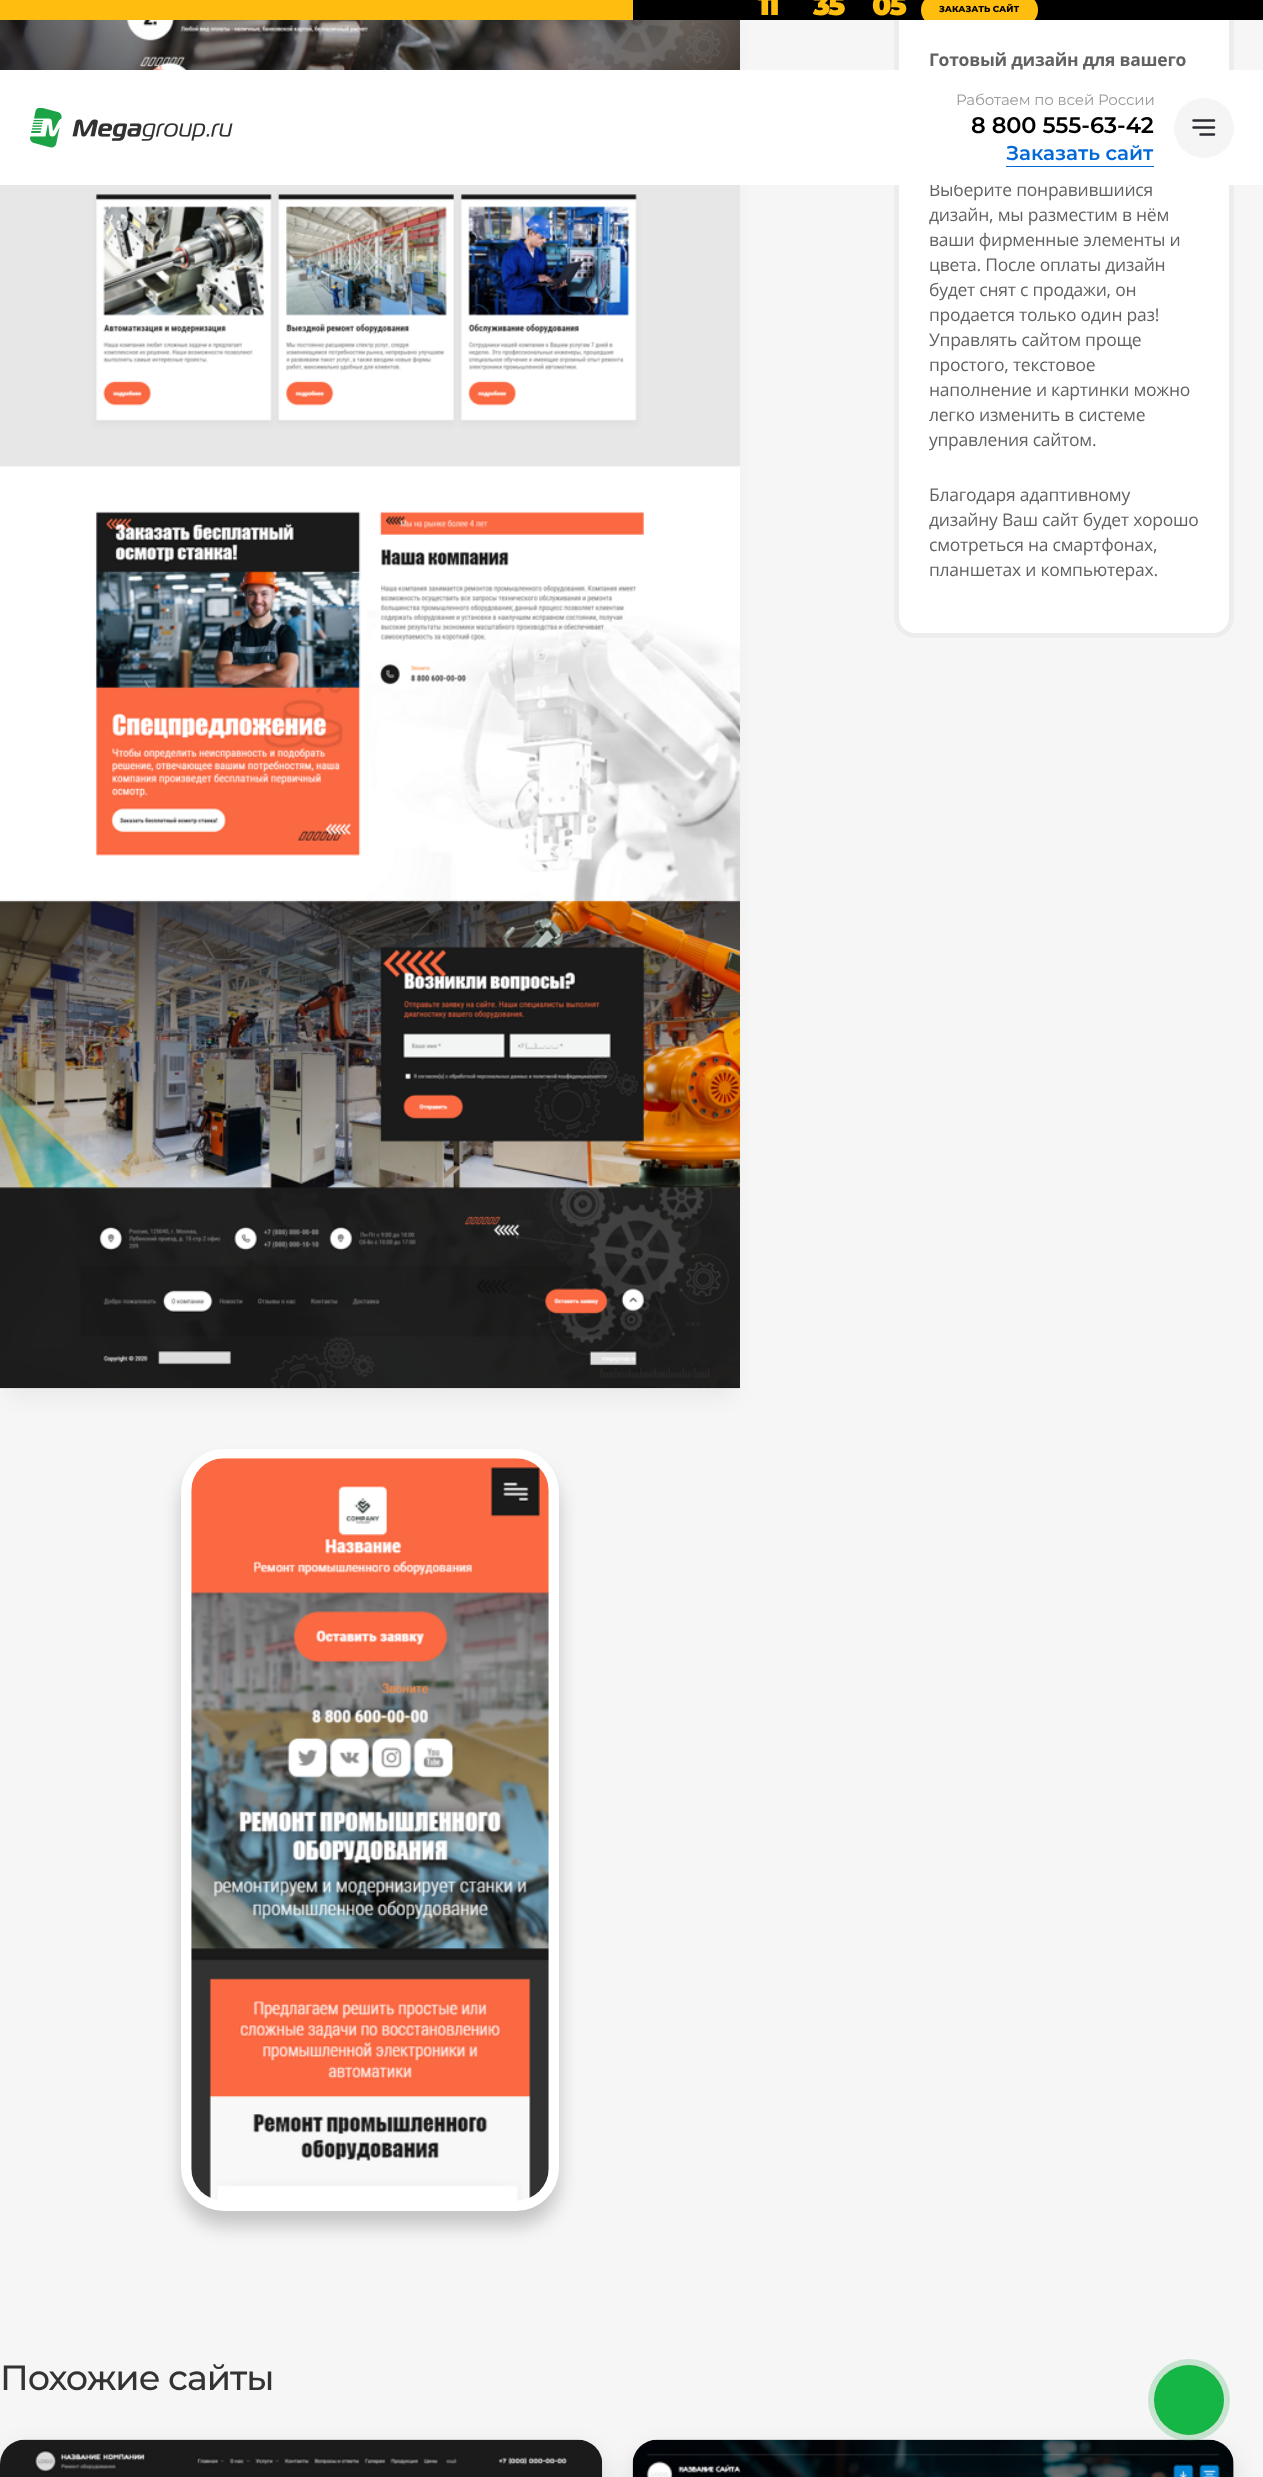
(async () => {
  const canvas = document.querySelector("canvas");
  canvas.width = 1263;
  canvas.height = 2477;
  const ctx = canvas.getContext("2d");
  ctx.miterLimit = 4;
  ctx.fontKerning = "normal";
  async function loadImage(src) {
    const img = new Image();
    img.src = src;
    await img.decode();
    return img;
  }
  let path;

  ctx.fillStyle = "#f6f6f6";
  ctx.fillRect(0, 0, 1263, 2477);
  ctx.fillStyle = "rgba(0, 0, 0, 0.05)";
  ctx.filter = "blur(10px)";
  ctx.beginPath();
  ctx.rect(8, -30, 725, 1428);
  ctx.fill();
  ctx.filter = "none";
  ctx.fillStyle = "#ffbd0f";
  ctx.fillRect(0, 0, 633, 20);
  ctx.fillStyle = "#ffffff";
  ctx.beginPath();
  ctx.roundRect(894, -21, 340, 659, 21);
  ctx.fill();
  ctx.beginPath();
  ctx.roundRect(896.5, -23.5, 335, 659, 18.5);
  ctx.strokeStyle = "rgba(144, 144, 144, 0.16)";
  ctx.lineWidth = 5;
  ctx.stroke();
  ctx.fillStyle = "#000000";
  ctx.fillRect(633, 0, 630, 20);
  ctx.save();
  ctx.beginPath();
  ctx.rect(0, 0, 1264, 20);
  ctx.clip();
  ctx.fillStyle = "#ffbd0f";
  ctx.beginPath();
  ctx.roundRect(921, -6, 117, 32, 16);
  ctx.fill();
  ctx.restore();
  ctx.drawImage(await loadImage("img/1.png"), 0, 20, 740, 1369);
  ctx.fillStyle = "rgba(0, 0, 0, 0.2)";
  ctx.filter = "blur(9px)";
  ctx.beginPath();
  ctx.roundRect(181, 1464, 378, 762, 43);
  ctx.fill();
  ctx.filter = "none";
  ctx.fillStyle = "#ffffff";
  ctx.beginPath();
  ctx.roundRect(181, 1449, 378, 762, 43);
  ctx.fill();
  ctx.drawImage(await loadImage("img/2.png"), 191, 1458, 358, 743);
  ctx.fillStyle = "rgba(0, 0, 0, 0.12)";
  ctx.filter = "blur(13px)";
  ctx.beginPath();
  ctx.roundRect(0, 2451, 603, 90, 25);
  ctx.fill();
  ctx.filter = "none";
  ctx.fillStyle = "#ffffff";
  ctx.beginPath();
  ctx.roundRect(0, 2440, 603, 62, 25);
  ctx.fill();
  ctx.drawImage(await loadImage("img/3.png"), 0, 2439, 603, 38);
  ctx.fillStyle = "rgba(0, 0, 0, 0.12)";
  ctx.filter = "blur(13px)";
  ctx.beginPath();
  ctx.roundRect(633, 2451, 601, 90, 25);
  ctx.fill();
  ctx.filter = "none";
  ctx.fillStyle = "#ffffff";
  ctx.beginPath();
  ctx.roundRect(633, 2440, 601, 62, 25);
  ctx.fill();
  ctx.drawImage(await loadImage("img/4.png"), 632, 2439, 602, 38);
  ctx.fillStyle = "#15bb47";
  ctx.beginPath();
  ctx.arc(1189, 2400, 35, 0, Math.PI * 2);
  ctx.fill();
  ctx.fillStyle = "rgba(28, 163, 69, 0.22)";
  ctx.beginPath();
  ctx.arc(1189, 2400, 41, 0, Math.PI * 2);
  ctx.fill();
  ctx.beginPath();
  ctx.arc(1189, 2400, 34.5, 0, Math.PI * 2);
  ctx.strokeStyle = "rgba(28, 163, 69, 0.22)";
  ctx.lineWidth = 1;
  ctx.stroke();
  ctx.letterSpacing = "-2px";
  ctx.font = "900 28px Montserrat";
  ctx.fillStyle = "#ffbd0f";
  for (const [text, x, y] of [
    ["11", 758, 15],
    ["35", 813, 15],
    ["05", 872, 15],
  ]) {
    ctx.fillText(text, x, y);
  }
  ctx.letterSpacing = "0px";
  ctx.font = "800 8.75px Montserrat";
  ctx.fillStyle = "#000000";
  ctx.fillText("ЗАКАЗАТЬ САЙТ", 939, 12);
  ctx.letterSpacing = "-0.25px";
  ctx.font = "bold 17.5px Open Sans";
  ctx.fillStyle = "#626262";
  ctx.fillText("Готовый дизайн для вашего", 929, 66);
  ctx.font = "17.5px Open Sans";
  for (const [text, x, y] of [
    ["Выберите понравившийся", 929, 196],
    ["дизайн, мы разместим в нём", 929, 221],
    ["ваши фирменные элементы и", 929, 246],
    ["цвета. После оплаты дизайн", 929, 271],
    ["будет снят с продажи, он", 929, 296],
    ["продается только один раз!", 929, 321],
    ["Управлять сайтом проще", 929, 346],
    ["простого, текстовое", 929, 371],
    ["наполнение и картинки можно", 929, 396],
    ["легко изменить в системе", 929, 421],
    ["управления сайтом.", 929, 446],
    ["Благодаря адаптивному", 929, 501],
    ["дизайну Ваш сайт будет хорошо", 929, 526],
    ["смотреться на смартфонах,", 929, 551],
    ["планшетах и компьютерах.", 929, 576],
  ]) {
    ctx.fillText(text, x, y);
  }
  ctx.letterSpacing = "-1px";
  ctx.font = "500 35px Montserrat";
  ctx.fillStyle = "#333333";
  ctx.fillText("Похожие сайты", 0, 2390);
  ctx.fillStyle = "#ffffff";
  ctx.fillRect(0, 70, 1263, 115);
  ctx.drawImage(await loadImage("img/5.png"), 30, 108, 203, 40);
  ctx.letterSpacing = "-0.1px";
  ctx.font = "15px Montserrat";
  ctx.fillStyle = "#999999";
  ctx.fillText("Работаем по всей России", 956, 105);
  ctx.font = "600 22.5px Montserrat";
  ctx.fillStyle = "#000000";
  ctx.fillText("8 800 555-63-42", 971, 133);
  ctx.letterSpacing = "0px";
  ctx.font = "600 20px Montserrat";
  ctx.fillStyle = "#0369d9";
  ctx.fillText("Заказать сайт", 1006, 160);
  ctx.fillRect(1006, 166, 148, 1);
  ctx.fillStyle = "#f5f5f5";
  ctx.beginPath();
  ctx.arc(1204, 128, 30, 0, Math.PI * 2);
  ctx.fill();
  path = new Path2D("M1193.5 127.5H1214M1193.5 120.5H1214M1200.5 134.5H1214");
  ctx.strokeStyle = "#2b2d33";
  ctx.lineWidth = 2.5;
  ctx.lineCap = "round";
  ctx.lineJoin = "round";
  ctx.stroke(path);
})();
